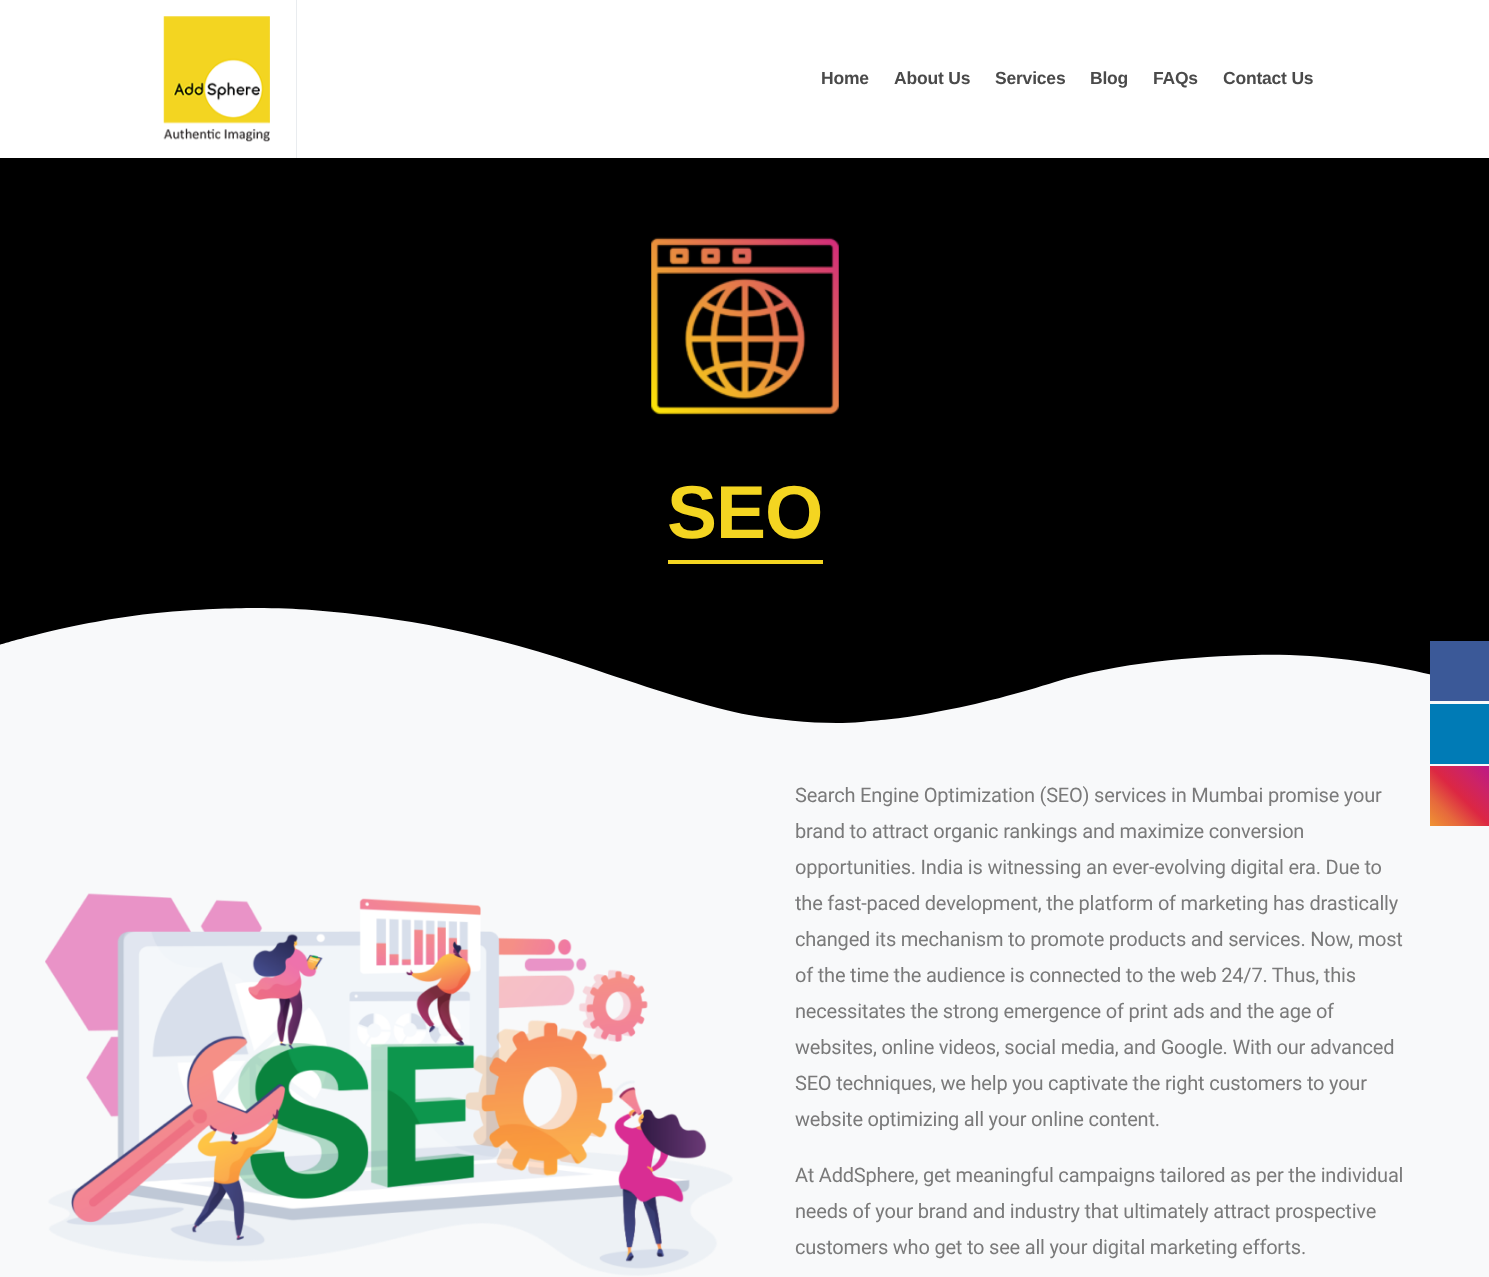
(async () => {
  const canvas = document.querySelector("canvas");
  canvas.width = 1489;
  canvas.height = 1277;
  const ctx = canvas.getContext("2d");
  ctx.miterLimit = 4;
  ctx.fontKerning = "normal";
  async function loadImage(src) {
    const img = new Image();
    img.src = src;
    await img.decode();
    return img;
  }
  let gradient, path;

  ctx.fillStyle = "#ffffff";
  ctx.fillRect(0, 0, 1489, 1277);
  ctx.drawImage(await loadImage("img/1.png"), 163, 16, 107, 126);
  for (const [x, y, w, h, color] of [
    [296, 0, 1, 158, "#e9ecef"],
    [0, 729, 1489, 548, "#f8f9fa"],
    [0, 158, 1489, 565, "#000000"],
  ]) {
    ctx.fillStyle = color;
    ctx.fillRect(x, y, w, h);
  }
  ctx.drawImage(await loadImage("img/2.png"), 651, 237, 188, 178);
  ctx.fillStyle = "#f4d521";
  ctx.fillRect(668, 560, 155, 4);
  ctx.fillStyle = "#f8f9fa";
  path = new Path2D("M861 722C828 725 785 721 749 715C714 709 643 686 599 671C486 632 400 617 312 610C276 608 239 606 157 613C76 621-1 645-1 645V729H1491V692C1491 692 1383 652 1255 655C1196 656 1116 663 1055 682C1023 692 977 705 936 712C895 720 877 720 861 722Z");
  ctx.fill(path);
  ctx.drawImage(await loadImage("img/3.png"), 45, 893, 688, 383);
  ctx.fillStyle = "#3b5998";
  ctx.fillRect(1430, 641, 59, 60);
  ctx.fillStyle = "#007bb6";
  ctx.fillRect(1430, 704, 59, 60);
  gradient = ctx.createLinearGradient(1430, 826, 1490, 766);
  gradient.addColorStop(0, "#f09433");
  gradient.addColorStop(0.25, "#e6683c");
  gradient.addColorStop(0.5, "#dc2743");
  gradient.addColorStop(0.75, "#cc2366");
  gradient.addColorStop(1, "#bc1888");
  ctx.fillStyle = gradient;
  ctx.fillRect(1430, 766, 59, 60);
  ctx.letterSpacing = "-0.2px";
  ctx.font = "bold 17.5px Liberation Sans";
  ctx.fillStyle = "#4a4a4a";
  for (const [text, x, y] of [
    ["Home", 821, 84],
    ["About Us", 894, 84],
    ["Services", 995, 84],
    ["Blog", 1090, 84],
    ["FAQs", 1153, 84],
    ["Contact Us", 1223, 84],
  ]) {
    ctx.fillText(text, x, y);
  }
  ctx.letterSpacing = "-1px";
  ctx.font = "bold 75px Liberation Sans";
  ctx.fillStyle = "#f4d521";
  ctx.fillText("SEO", 667, 538);
  ctx.letterSpacing = "-0.2px";
  ctx.font = "20px Roboto";
  ctx.fillStyle = "#7a7a7a";
  for (const [text, x, y] of [
    ["Search Engine Optimization (SEO) services in Mumbai promise your", 795, 802],
    ["brand to attract organic rankings and maximize conversion", 795, 838],
    ["opportunities. India is witnessing an ever-evolving digital era. Due to", 795, 874],
    ["the fast-paced development, the platform of marketing has drastically", 795, 910],
    ["changed its mechanism to promote products and services. Now, most", 795, 946],
    ["of the time the audience is connected to the web 24/7. Thus, this", 795, 982],
    ["necessitates the strong emergence of print ads and the age of", 795, 1018],
    ["websites, online videos, social media, and Google. With our advanced", 795, 1054],
    ["SEO techniques, we help you captivate the right customers to your", 795, 1090],
    ["website optimizing all your online content.", 795, 1126],
    ["At AddSphere, get meaningful campaigns tailored as per the individual", 795, 1182],
    ["needs of your brand and industry that ultimately attract prospective", 795, 1218],
    ["customers who get to see all your digital marketing efforts.", 795, 1254],
  ]) {
    ctx.fillText(text, x, y);
  }
})();
